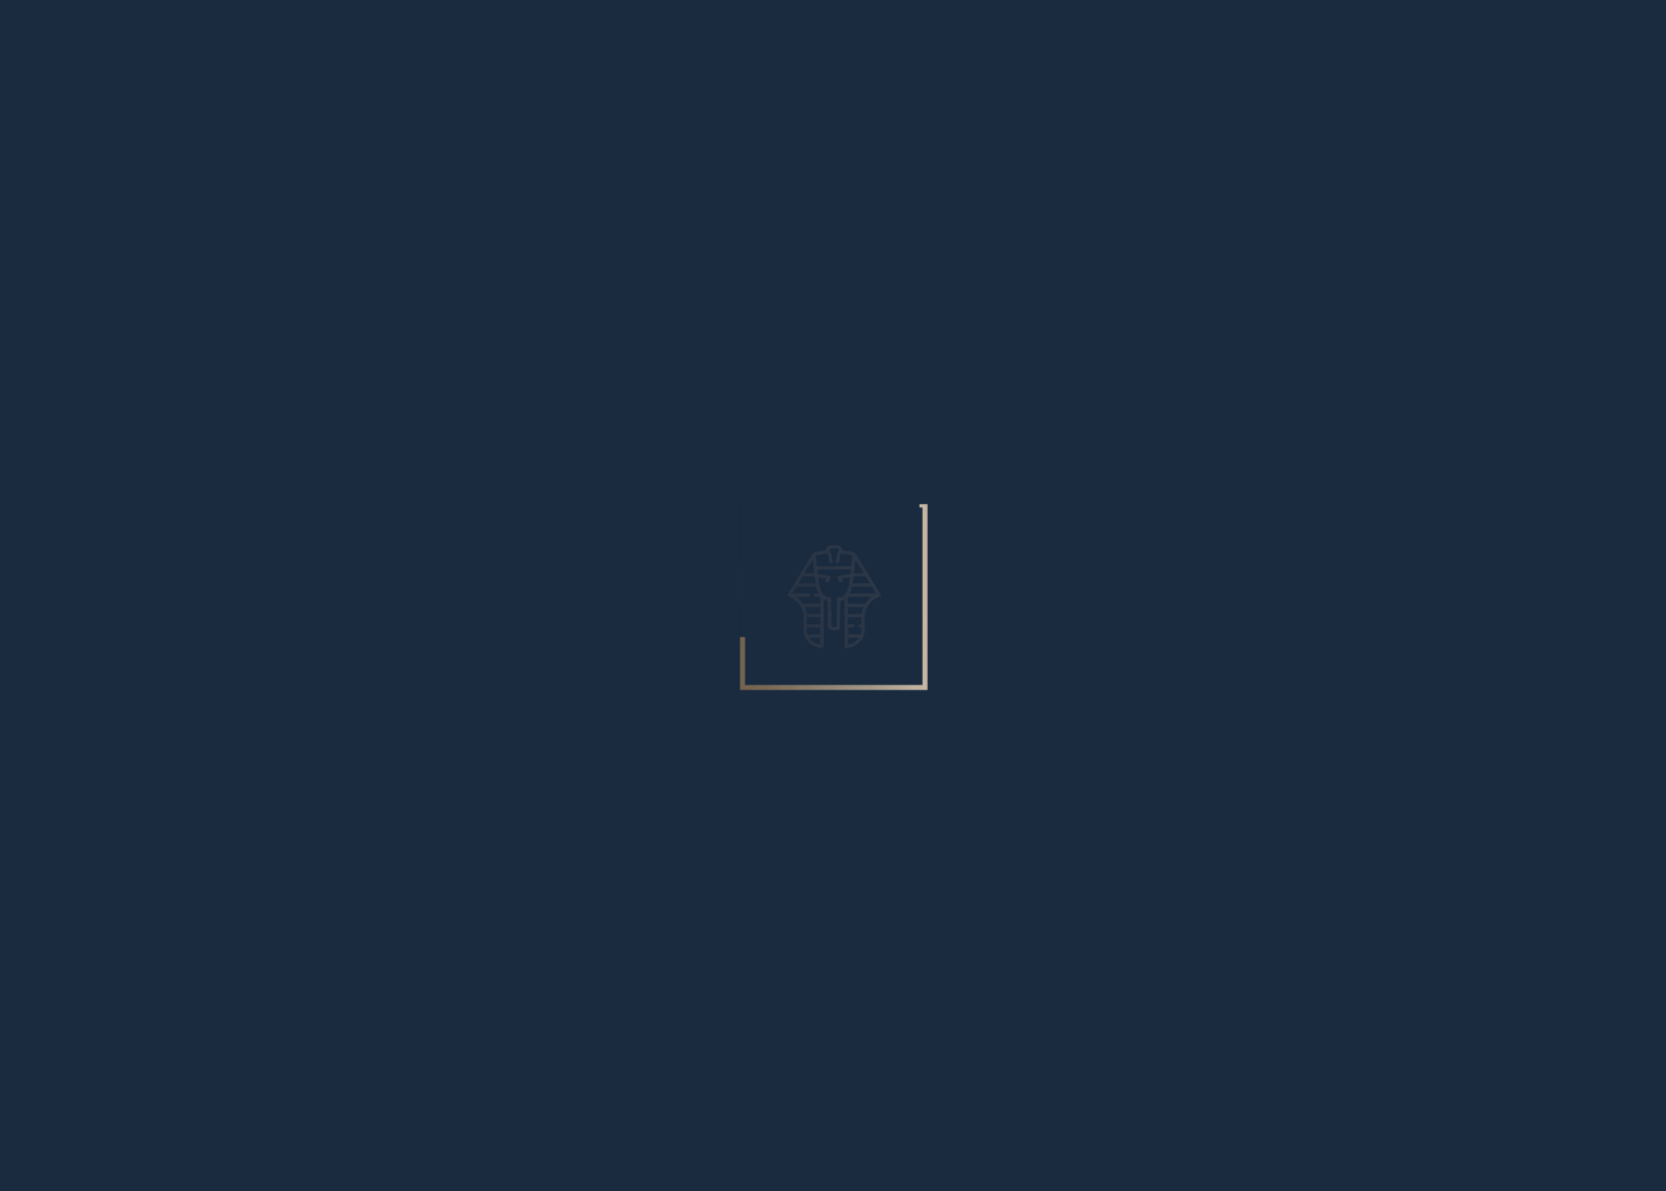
(async () => {
  const canvas = document.querySelector("canvas");
  canvas.width = 1666;
  canvas.height = 1191;
  const ctx = canvas.getContext("2d");
  ctx.miterLimit = 4;
  ctx.fontKerning = "normal";
  async function loadImage(src) {
    const img = new Image();
    img.src = src;
    await img.decode();
    return img;
  }

  ctx.fillStyle = "#1a2a3f";
  ctx.fillRect(0, 0, 1666, 1191);
  ctx.drawImage(await loadImage("img/1.png"), 739, 503, 189, 188);
})();
